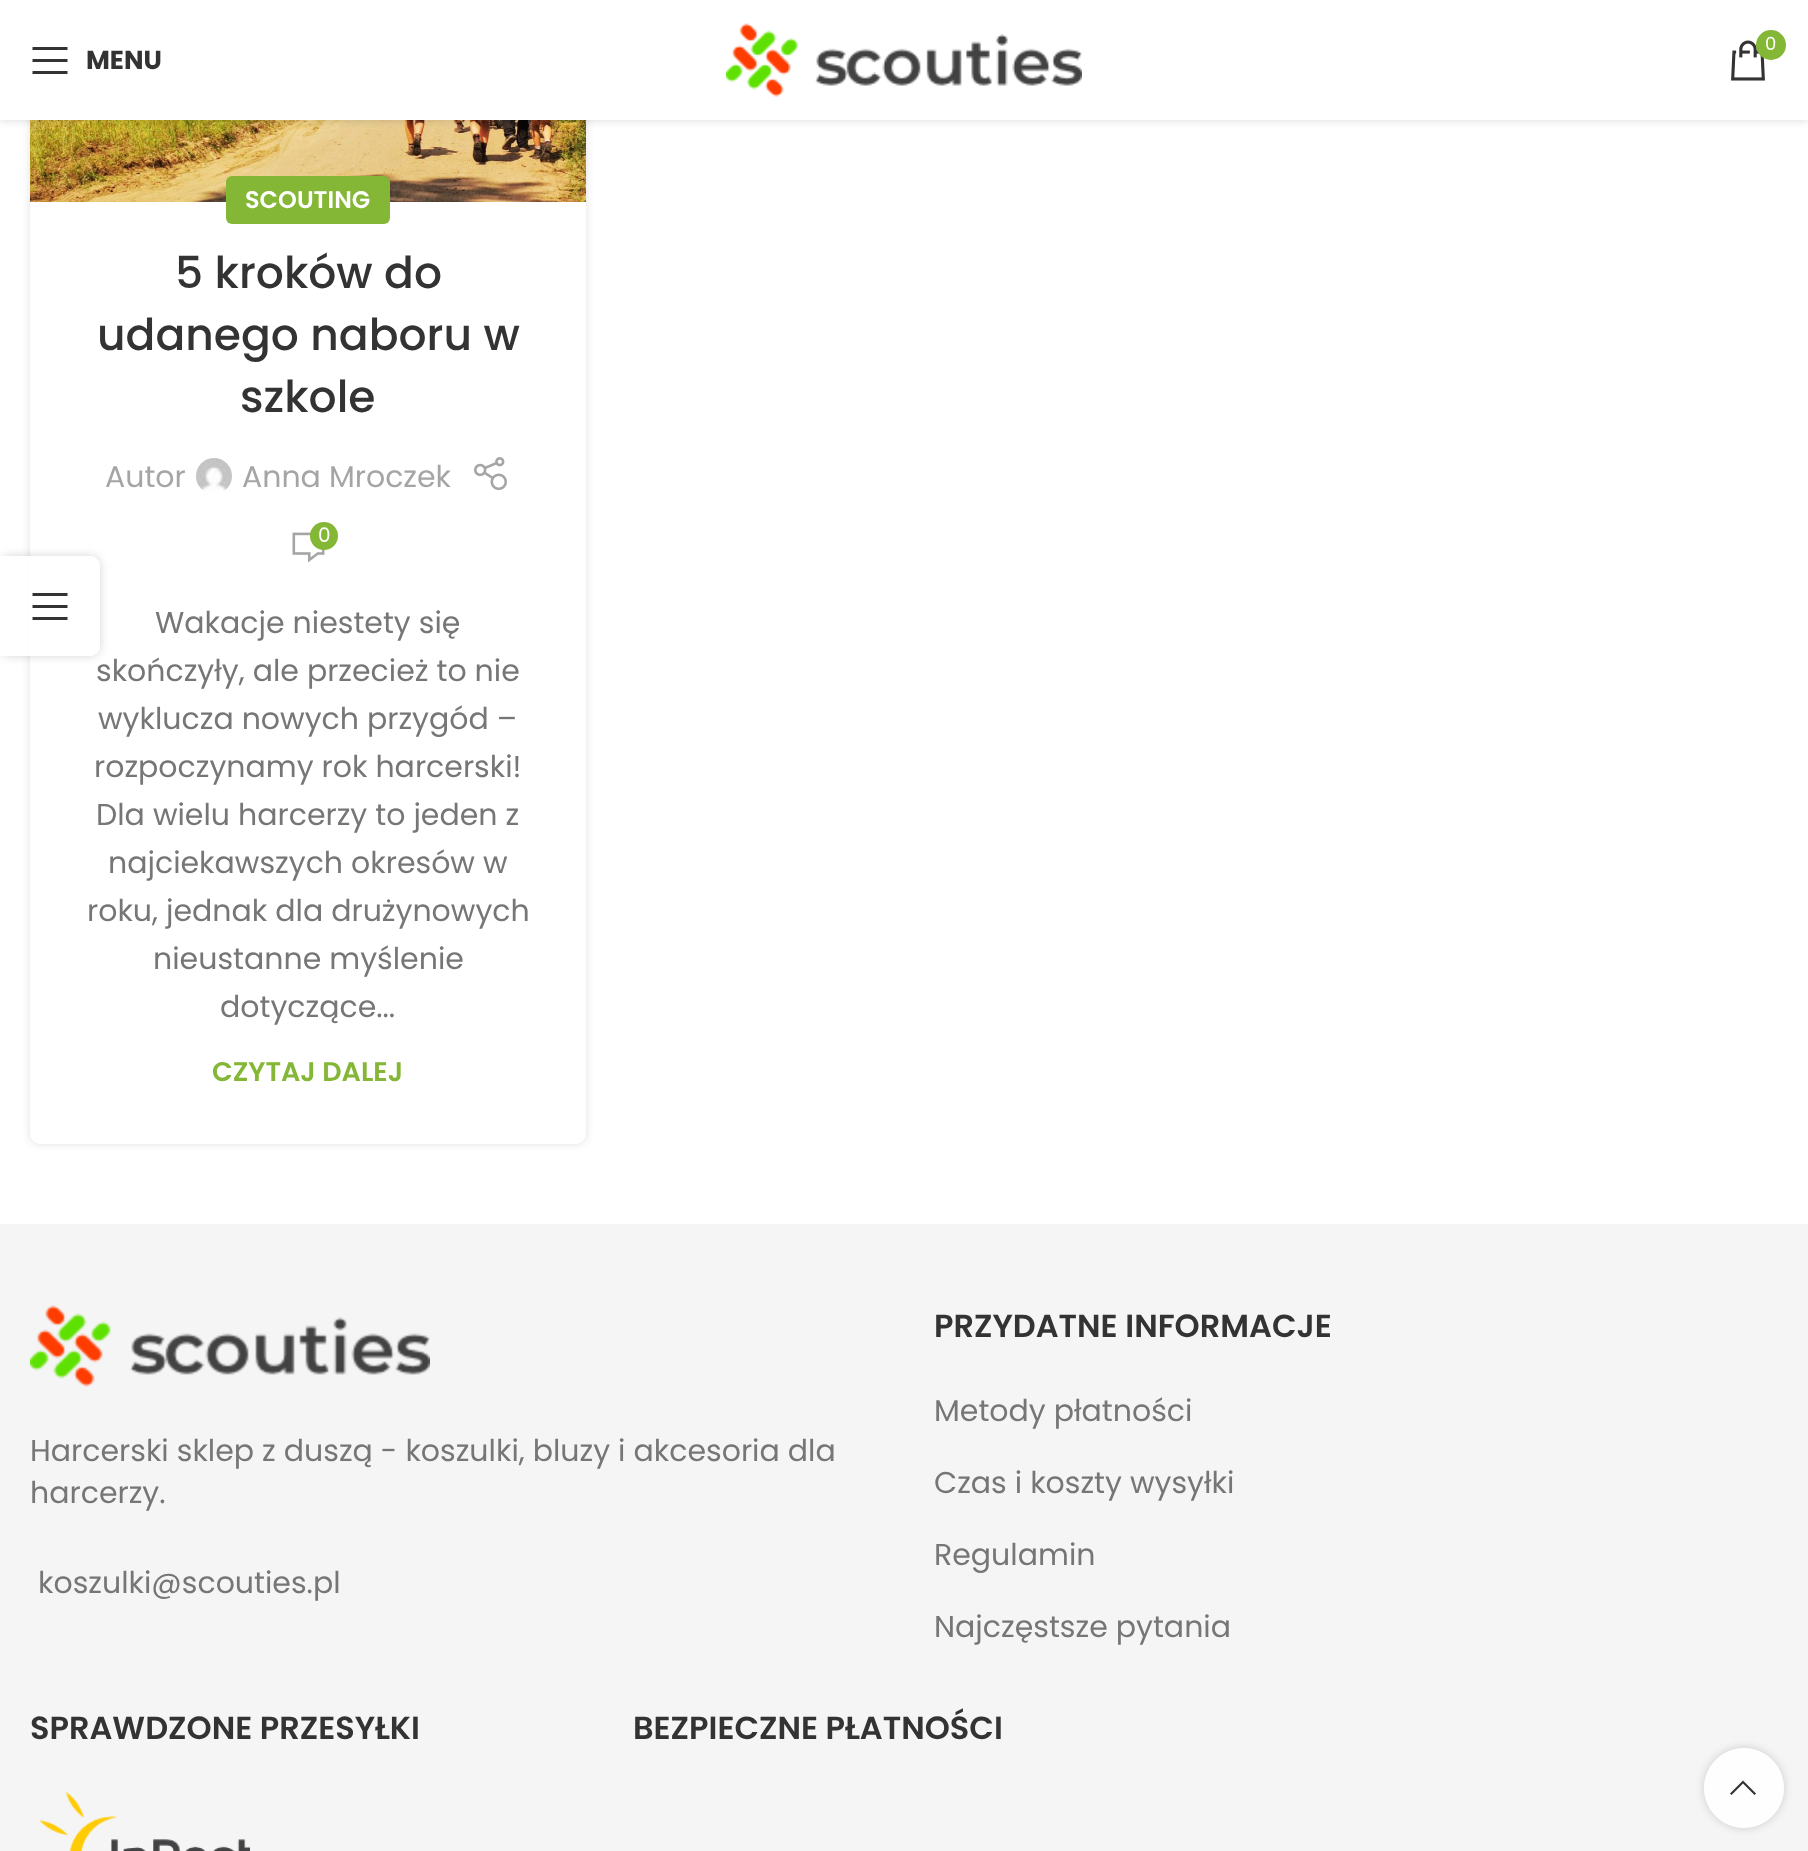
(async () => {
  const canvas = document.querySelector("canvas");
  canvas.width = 1808;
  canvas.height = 1851;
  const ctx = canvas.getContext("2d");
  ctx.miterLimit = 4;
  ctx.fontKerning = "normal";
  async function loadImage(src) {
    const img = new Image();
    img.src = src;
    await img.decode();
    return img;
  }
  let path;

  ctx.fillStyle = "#ffffff";
  ctx.fillRect(0, 0, 1808, 1851);
  ctx.fillStyle = "rgba(0, 0, 0, 0.12)";
  ctx.filter = "blur(4px)";
  ctx.beginPath();
  ctx.roundRect(30, -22, 556, 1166, 10);
  ctx.fill();
  ctx.filter = "none";
  ctx.drawImage(await loadImage("img/3.png"), 30, 120, 556, 82);
  ctx.fillStyle = "rgba(0, 0, 0, 0.1)";
  ctx.filter = "blur(3px)";
  ctx.beginPath();
  ctx.rect(0, 2, 1808, 120);
  ctx.fill();
  ctx.filter = "none";
  ctx.fillStyle = "#ffffff";
  ctx.fillRect(0, 0, 1808, 120);
  ctx.drawImage(await loadImage("img/1.png"), 726, 23, 356, 74);
  ctx.drawImage(await loadImage("img/2.png"), 1731, 40, 34, 41);
  ctx.fillStyle = "#83b735";
  ctx.beginPath();
  ctx.arc(1771, 45, 15, 0, Math.PI * 2);
  ctx.fill();
  ctx.fillStyle = "#333333";
  path = new Path2D("M32.5 50H67.5V47H32.5ZM32.5 62H67.5V59H32.5ZM32.5 74H67.5V71H32.5Z");
  ctx.fill(path);
  ctx.fillStyle = "#ffffff";
  ctx.beginPath();
  ctx.roundRect(30, 202, 556, 942, [0, 0, 10, 10]);
  ctx.fill();
  ctx.fillStyle = "#83b735";
  ctx.beginPath();
  ctx.roundRect(226, 176, 164, 48, 6);
  ctx.fill();
  ctx.drawImage(await loadImage("img/4.png"), 196, 458, 36, 33);
  ctx.drawImage(await loadImage("img/5.png"), 474, 457, 33, 33);
  ctx.drawImage(await loadImage("img/6.png"), 292, 532, 33, 31);
  ctx.beginPath();
  ctx.arc(324, 536, 14, 0, Math.PI * 2);
  ctx.fill();
  ctx.fillStyle = "#f5f5f5";
  ctx.fillRect(0, 1224, 1808, 627);
  ctx.drawImage(await loadImage("img/7.png"), 30, 1305, 400, 82);
  ctx.drawImage(await loadImage("img/8.png"), 39, 1792, 211, 59);
  ctx.save();
  path = new Path2D("M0 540H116V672H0ZM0 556H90C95.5 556 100 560.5 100 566V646C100 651.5 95.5 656 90 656H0Z");
  ctx.clip(path, "evenodd");
  ctx.fillStyle = "rgba(0, 0, 0, 0.17)";
  ctx.filter = "blur(5px)";
  ctx.beginPath();
  ctx.roundRect(0, 556, 100, 100, 10);
  ctx.fill();
  ctx.filter = "none";
  ctx.restore();
  ctx.fillStyle = "rgba(255, 255, 255, 0.9)";
  ctx.beginPath();
  ctx.roundRect(0, 556, 100, 100, [0, 10, 10, 0]);
  ctx.fill();
  ctx.fillStyle = "#333333";
  path = new Path2D("M32.5 596H67.5V593H32.5ZM32.5 608H67.5V605H32.5ZM32.5 620H67.5V617H32.5Z");
  ctx.fill(path);
  ctx.save();
  path = new Path2D("M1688 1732H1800V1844H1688ZM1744 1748C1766 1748 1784 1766 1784 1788C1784 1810 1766 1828 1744 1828C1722 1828 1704 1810 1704 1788C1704 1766 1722 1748 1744 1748Z");
  ctx.clip(path, "evenodd");
  ctx.fillStyle = "rgba(0, 0, 0, 0.17)";
  ctx.filter = "blur(5px)";
  ctx.beginPath();
  ctx.roundRect(1704, 1748, 80, 80, 40);
  ctx.fill();
  ctx.filter = "none";
  ctx.restore();
  ctx.fillStyle = "rgba(255, 255, 255, 0.9)";
  ctx.beginPath();
  ctx.arc(1744, 1788, 40, 0, Math.PI * 2);
  ctx.fill();
  ctx.fillStyle = "#333333";
  path = new Path2D("M1754.5 1795L1756 1793.5L1743 1780.5L1730 1793.5L1731.5 1795L1743 1783.5Z");
  ctx.fill(path);
  ctx.font = "18px Poppins";
  ctx.fillStyle = "#ffffff";
  ctx.fillText("0", 1765, 50);
  ctx.font = "bold 26px Poppins";
  ctx.fillStyle = "#333333";
  ctx.fillText("MENU", 86, 69);
  ctx.font = "600 24px Poppins";
  ctx.fillStyle = "#ffffff";
  ctx.fillText("SCOUTING", 245, 208);
  ctx.font = "500 44px Poppins";
  ctx.fillStyle = "#333333";
  for (const [text, x, y] of [
    ["5 kroków do", 175, 288],
    ["udanego naboru w", 97, 350],
    ["szkole", 240, 412],
  ]) {
    ctx.fillText(text, x, y);
  }
  ctx.font = "30px Poppins";
  ctx.fillStyle = "#a5a5a5";
  ctx.fillText("Autor", 105, 487);
  ctx.fillText("Anna Mroczek", 242, 487);
  ctx.font = "20px Poppins";
  ctx.fillStyle = "#ffffff";
  ctx.fillText("0", 318, 542);
  ctx.font = "30px Poppins";
  ctx.fillStyle = "#767676";
  for (const [text, x, y] of [
    ["Wakacje niestety się", 155, 633],
    ["skończyły, ale przecież to nie", 96, 681],
    ["wyklucza nowych przygód –", 98, 729],
    ["rozpoczynamy rok harcerski!", 94, 777],
    ["Dla wielu harcerzy to jeden z", 96, 825],
    ["najciekawszych okresów w", 108, 873],
    ["roku, jednak dla drużynowych", 87, 921],
    ["nieustanne myślenie", 153, 969],
    ["dotyczące...", 220, 1017],
  ]) {
    ctx.fillText(text, x, y);
  }
  ctx.font = "600 27px Poppins";
  ctx.fillStyle = "#83b735";
  ctx.fillText("CZYTAJ DALEJ", 212, 1081);
  ctx.font = "30px Poppins";
  ctx.fillStyle = "#767676";
  for (const [text, x, y] of [
    ["Harcerski sklep z duszą - koszulki, bluzy i akcesoria dla", 30, 1461],
    ["harcerzy.", 30, 1503],
    ["koszulki@scouties.pl", 38, 1593],
  ]) {
    ctx.fillText(text, x, y);
  }
  ctx.font = "600 32px Poppins";
  ctx.fillStyle = "#333333";
  ctx.fillText("PRZYDATNE INFORMACJE", 934, 1337);
  ctx.font = "30px Poppins";
  ctx.fillStyle = "#767676";
  for (const [text, x, y] of [
    ["Metody płatności", 934, 1421],
    ["Czas i koszty wysyłki", 934, 1493],
    ["Regulamin", 934, 1565],
    ["Najczęstsze pytania", 934, 1637],
  ]) {
    ctx.fillText(text, x, y);
  }
  ctx.font = "600 32px Poppins";
  ctx.fillStyle = "#333333";
  ctx.fillText("SPRAWDZONE PRZESYŁKI", 30, 1739);
  ctx.fillText("BEZPIECZNE PŁATNOŚCI", 633, 1739);
})();
